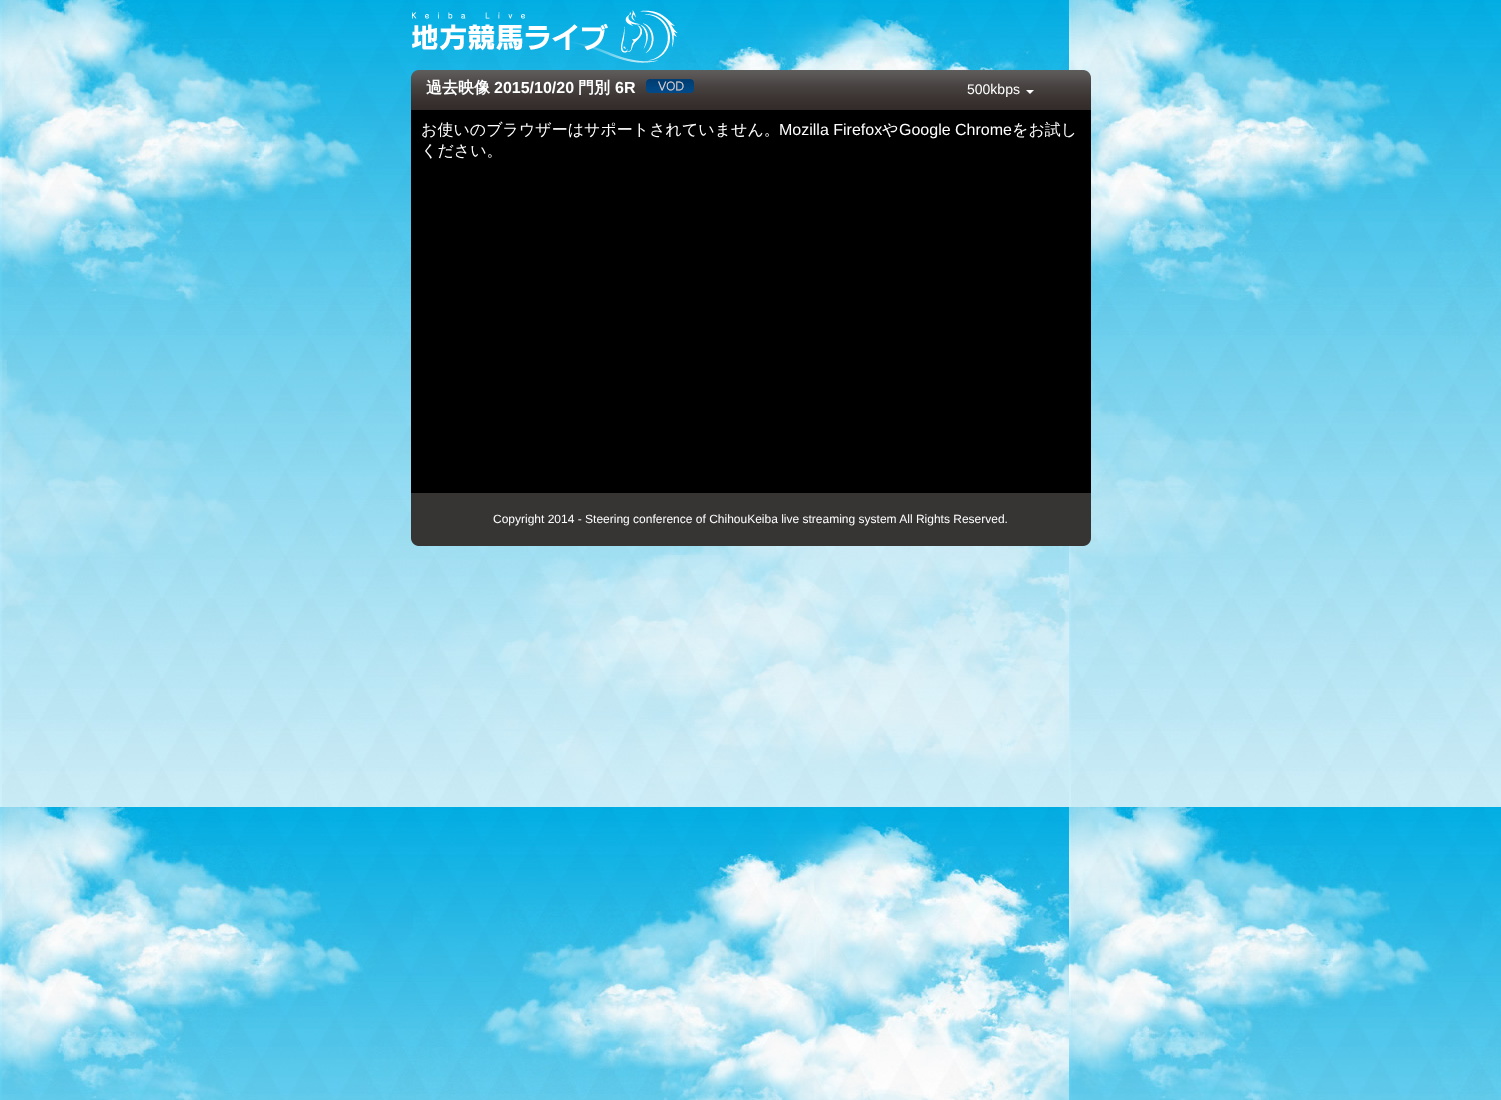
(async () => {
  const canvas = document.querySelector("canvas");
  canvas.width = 1501;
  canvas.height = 1100;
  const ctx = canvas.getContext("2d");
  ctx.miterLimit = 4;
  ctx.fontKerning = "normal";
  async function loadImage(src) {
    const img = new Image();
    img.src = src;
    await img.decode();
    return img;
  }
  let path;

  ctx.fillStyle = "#ffffff";
  ctx.fillRect(0, 0, 1501, 1100);
  ctx.drawImage(await loadImage("img/1.png"), 0, 0, 1501, 1100);
  ctx.drawImage(await loadImage("img/2.png"), 412, 10, 266, 53);
  ctx.drawImage(await loadImage("img/3.png"), 411, 70, 680, 40);
  ctx.drawImage(await loadImage("img/4.png"), 646, 79, 48, 14);
  path = new Path2D("M1026 90H1034L1030 94Z");
  ctx.fill(path);
  ctx.fillStyle = "#000000";
  ctx.fillRect(411, 110, 680, 383);
  ctx.drawImage(await loadImage("img/5.png"), 411, 493, 680, 53);
  ctx.font = "bold 16px WenQuanYi Zen Hei";
  ctx.fillStyle = "#ffffff";
  ctx.fillText("過去映像", 426, 93);
  ctx.font = "bold 16px Liberation Sans";
  ctx.fillText("2015/10/20", 494, 93);
  ctx.font = "bold 16px WenQuanYi Zen Hei";
  ctx.fillText("門別", 578, 93);
  ctx.font = "bold 16px Liberation Sans";
  ctx.fillText("6R", 615, 93);
  ctx.font = "14px Liberation Sans";
  ctx.fillText("500kbps", 967, 94);
  ctx.font = "500 16px WenQuanYi Zen Hei";
  ctx.fillText("お使いのブラウザーはサポートされていません。", 421, 135);
  ctx.font = "16px Liberation Sans";
  ctx.fillText("Mozilla Firefox", 779, 135);
  ctx.font = "500 16px WenQuanYi Zen Hei";
  ctx.fillText("や", 882, 135);
  ctx.font = "16px Liberation Sans";
  ctx.fillText("Google Chrome", 899, 135);
  ctx.font = "500 16px WenQuanYi Zen Hei";
  ctx.fillText("をお試し", 1012, 135);
  ctx.fillText("ください。", 421, 156);
  ctx.font = "12px Liberation Sans";
  ctx.fillText("Copyright 2014 - Steering conference of ChihouKeiba live streaming system All Rights Reserved.", 493, 523);
})();
